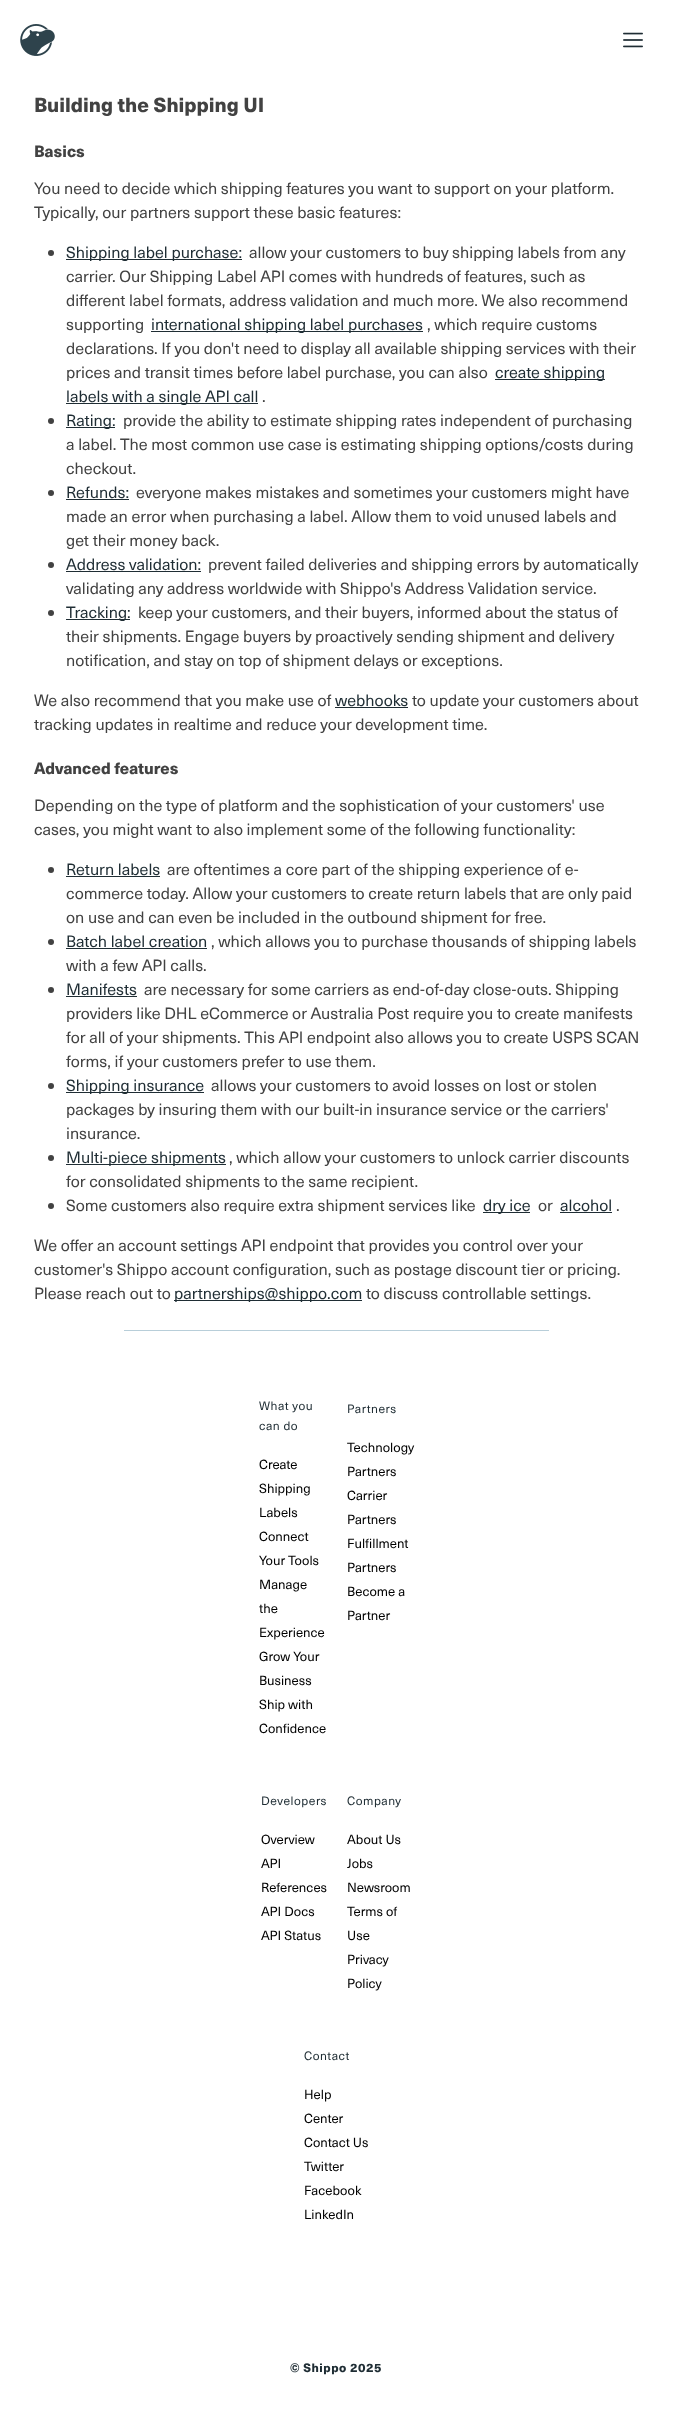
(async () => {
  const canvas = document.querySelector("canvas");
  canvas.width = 673;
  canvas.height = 2413;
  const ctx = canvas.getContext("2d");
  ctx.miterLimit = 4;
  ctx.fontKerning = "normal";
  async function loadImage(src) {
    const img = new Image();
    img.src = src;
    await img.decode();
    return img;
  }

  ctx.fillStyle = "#ffffff";
  ctx.fillRect(0, 0, 673, 2413);
  ctx.drawImage(await loadImage("img/1.png"), 20, 24, 35, 32);
  ctx.drawImage(await loadImage("img/2.png"), 623, 32, 20, 16);
  ctx.fillStyle = "#424242";
  ctx.beginPath();
  ctx.arc(51, 253, 3, 0, Math.PI * 2);
  ctx.fill();
  for (const [x, y, w, h, color] of [
    [66, 259, 176, 1, "#1f2d34"],
    [151, 331, 272, 1, "#1f2d34"],
    [495, 379, 110, 1, "#1f2d34"],
    [66, 403, 192, 1, "#1f2d34"],
  ]) {
    ctx.fillStyle = color;
    ctx.fillRect(x, y, w, h);
  }
  ctx.fillStyle = "#424242";
  ctx.beginPath();
  ctx.arc(51, 421, 3, 0, Math.PI * 2);
  ctx.fill();
  ctx.fillStyle = "#1f2d34";
  ctx.fillRect(66, 427, 49, 1);
  ctx.fillStyle = "#424242";
  ctx.beginPath();
  ctx.arc(51, 493, 3, 0, Math.PI * 2);
  ctx.fill();
  ctx.fillStyle = "#1f2d34";
  ctx.fillRect(66, 499, 63, 1);
  ctx.fillStyle = "#424242";
  ctx.beginPath();
  ctx.arc(51, 565, 3, 0, Math.PI * 2);
  ctx.fill();
  ctx.fillStyle = "#1f2d34";
  ctx.fillRect(66, 571, 135, 1);
  ctx.fillStyle = "#424242";
  ctx.beginPath();
  ctx.arc(51, 613, 3, 0, Math.PI * 2);
  ctx.fill();
  ctx.fillStyle = "#1f2d34";
  ctx.fillRect(66, 619, 64, 1);
  ctx.fillRect(335, 707, 73, 1);
  ctx.fillStyle = "#424242";
  ctx.beginPath();
  ctx.arc(51, 870, 3, 0, Math.PI * 2);
  ctx.fill();
  ctx.fillStyle = "#1f2d34";
  ctx.fillRect(66, 876, 94, 1);
  ctx.fillStyle = "#424242";
  ctx.beginPath();
  ctx.arc(51, 942, 3, 0, Math.PI * 2);
  ctx.fill();
  ctx.fillStyle = "#1f2d34";
  ctx.fillRect(66, 948, 141, 1);
  ctx.fillStyle = "#424242";
  ctx.beginPath();
  ctx.arc(51, 990, 3, 0, Math.PI * 2);
  ctx.fill();
  ctx.fillStyle = "#1f2d34";
  ctx.fillRect(66, 996, 71, 1);
  ctx.fillStyle = "#424242";
  ctx.beginPath();
  ctx.arc(51, 1086, 3, 0, Math.PI * 2);
  ctx.fill();
  ctx.fillStyle = "#1f2d34";
  ctx.fillRect(66, 1092, 138, 1);
  ctx.fillStyle = "#424242";
  ctx.beginPath();
  ctx.arc(51, 1158, 3, 0, Math.PI * 2);
  ctx.fill();
  ctx.fillStyle = "#1f2d34";
  ctx.fillRect(66, 1164, 160, 1);
  ctx.fillStyle = "#424242";
  ctx.beginPath();
  ctx.arc(51, 1206, 3, 0, Math.PI * 2);
  ctx.fill();
  for (const [x, y, w, h, color] of [
    [483, 1212, 47, 1, "#1f2d34"],
    [560, 1212, 52, 1, "#1f2d34"],
    [174, 1300, 188, 1, "#1f2d34"],
    [124, 1330, 425, 1, "#b8ced9"],
  ]) {
    ctx.fillStyle = color;
    ctx.fillRect(x, y, w, h);
  }
  ctx.font = "900 20px 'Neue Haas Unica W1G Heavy'";
  ctx.fillStyle = "#424242";
  ctx.fillText("Building the Shipping UI", 34, 112);
  ctx.font = "900 16px 'Neue Haas Unica W1G Heavy'";
  ctx.fillText("Basics", 34, 157);
  ctx.font = "16px 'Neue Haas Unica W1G'";
  ctx.fillText("You need to decide which shipping features you want to support on your platform.", 34, 194);
  ctx.fillText("Typically, our partners support these basic features:", 34, 218);
  ctx.fillStyle = "#1f2d34";
  ctx.fillText("Shipping label purchase:", 66, 258);
  ctx.fillStyle = "#424242";
  for (const [text, x, y] of [
    ["allow your customers to buy shipping labels from any", 249, 258],
    ["carrier. Our Shipping Label API comes with hundreds of features, such as", 66, 282],
    ["different label formats, address validation and much more. We also recommend", 66, 306],
    ["supporting", 66, 330],
  ]) {
    ctx.fillText(text, x, y);
  }
  ctx.fillStyle = "#1f2d34";
  ctx.fillText("international shipping label purchases", 151, 330);
  ctx.fillStyle = "#424242";
  for (const [text, x, y] of [
    [", which require customs", 427, 330],
    ["declarations. If you don't need to display all available shipping services with their", 66, 354],
    ["prices and transit times before label purchase, you can also", 66, 378],
  ]) {
    ctx.fillText(text, x, y);
  }
  ctx.fillStyle = "#1f2d34";
  ctx.fillText("create shipping", 495, 378);
  ctx.fillText("labels with a single API call", 66, 402);
  ctx.fillStyle = "#424242";
  ctx.fillText(".", 262, 402);
  ctx.fillStyle = "#1f2d34";
  ctx.fillText("Rating:", 66, 426);
  ctx.fillStyle = "#424242";
  for (const [text, x, y] of [
    ["provide the ability to estimate shipping rates independent of purchasing", 123, 426],
    ["a label. The most common use case is estimating shipping options/costs during", 66, 450],
    ["checkout.", 66, 474],
  ]) {
    ctx.fillText(text, x, y);
  }
  ctx.fillStyle = "#1f2d34";
  ctx.fillText("Refunds:", 66, 498);
  ctx.fillStyle = "#424242";
  for (const [text, x, y] of [
    ["everyone makes mistakes and sometimes your customers might have", 136, 498],
    ["made an error when purchasing a label. Allow them to void unused labels and", 66, 522],
    ["get their money back.", 66, 546],
  ]) {
    ctx.fillText(text, x, y);
  }
  ctx.fillStyle = "#1f2d34";
  ctx.fillText("Address validation:", 66, 570);
  ctx.fillStyle = "#424242";
  ctx.fillText("prevent failed deliveries and shipping errors by automatically", 208, 570);
  ctx.fillText("validating any address worldwide with Shippo's Address Validation service.", 66, 594);
  ctx.fillStyle = "#1f2d34";
  ctx.fillText("Tracking:", 66, 618);
  ctx.fillStyle = "#424242";
  for (const [text, x, y] of [
    ["keep your customers, and their buyers, informed about the status of", 138, 618],
    ["their shipments. Engage buyers by proactively sending shipment and delivery", 66, 642],
    ["notification, and stay on top of shipment delays or exceptions.", 66, 666],
    ["We also recommend that you make use of", 34, 706],
  ]) {
    ctx.fillText(text, x, y);
  }
  ctx.fillStyle = "#1f2d34";
  ctx.fillText("webhooks", 335, 706);
  ctx.fillStyle = "#424242";
  ctx.fillText("to update your customers about", 412, 706);
  ctx.fillText("tracking updates in realtime and reduce your development time.", 34, 730);
  ctx.font = "900 16px 'Neue Haas Unica W1G Heavy'";
  ctx.fillText("Advanced features", 34, 774);
  ctx.font = "16px 'Neue Haas Unica W1G'";
  ctx.fillText("Depending on the type of platform and the sophistication of your customers' use", 34, 811);
  ctx.fillText("cases, you might want to also implement some of the following functionality:", 34, 835);
  ctx.fillStyle = "#1f2d34";
  ctx.fillText("Return labels", 66, 875);
  ctx.fillStyle = "#424242";
  for (const [text, x, y] of [
    ["are oftentimes a core part of the shipping experience of e-", 167, 875],
    ["commerce today. Allow your customers to create return labels that are only paid", 66, 899],
    ["on use and can even be included in the outbound shipment for free.", 66, 923],
  ]) {
    ctx.fillText(text, x, y);
  }
  ctx.fillStyle = "#1f2d34";
  ctx.fillText("Batch label creation", 66, 947);
  ctx.fillStyle = "#424242";
  ctx.fillText(", which allows you to purchase thousands of shipping labels", 211, 947);
  ctx.fillText("with a few API calls.", 66, 971);
  ctx.fillStyle = "#1f2d34";
  ctx.fillText("Manifests", 66, 995);
  ctx.fillStyle = "#424242";
  for (const [text, x, y] of [
    ["are necessary for some carriers as end-of-day close-outs. Shipping", 144, 995],
    ["providers like DHL eCommerce or Australia Post require you to create manifests", 66, 1019],
    ["for all of your shipments. This API endpoint also allows you to create USPS SCAN", 66, 1043],
    ["forms, if your customers prefer to use them.", 66, 1067],
  ]) {
    ctx.fillText(text, x, y);
  }
  ctx.fillStyle = "#1f2d34";
  ctx.fillText("Shipping insurance", 66, 1091);
  ctx.fillStyle = "#424242";
  for (const [text, x, y] of [
    ["allows your customers to avoid losses on lost or stolen", 211, 1091],
    ["packages by insuring them with our built-in insurance service or the carriers'", 66, 1115],
    ["insurance.", 66, 1139],
  ]) {
    ctx.fillText(text, x, y);
  }
  ctx.fillStyle = "#1f2d34";
  ctx.fillText("Multi-piece shipments", 66, 1163);
  ctx.fillStyle = "#424242";
  for (const [text, x, y] of [
    [", which allow your customers to unlock carrier discounts", 229, 1163],
    ["for consolidated shipments to the same recipient.", 66, 1187],
    ["Some customers also require extra shipment services like", 66, 1211],
  ]) {
    ctx.fillText(text, x, y);
  }
  ctx.fillStyle = "#1f2d34";
  ctx.fillText("dry ice", 483, 1211);
  ctx.fillStyle = "#424242";
  ctx.fillText("or", 538, 1211);
  ctx.fillStyle = "#1f2d34";
  ctx.fillText("alcohol", 560, 1211);
  ctx.fillStyle = "#424242";
  for (const [text, x, y] of [
    [".", 616, 1211],
    ["We offer an account settings API endpoint that provides you control over your", 34, 1251],
    ["customer's Shippo account configuration, such as postage discount tier or pricing.", 34, 1275],
    ["Please reach out to", 34, 1299],
  ]) {
    ctx.fillText(text, x, y);
  }
  ctx.fillStyle = "#1f2d34";
  ctx.fillText("partnerships@shippo.com", 174, 1299);
  ctx.fillStyle = "#424242";
  ctx.fillText("to discuss controllable settings.", 366, 1299);
  ctx.letterSpacing = "0.5px";
  ctx.font = "12px 'Neue Haas Unica W1G'";
  ctx.fillStyle = "#1f2d34";
  ctx.fillText("What you", 259, 1410);
  ctx.fillText("can do", 259, 1430);
  ctx.letterSpacing = "0px";
  ctx.font = "13px 'Neue Haas Unica W1G'";
  ctx.fillStyle = "#000000";
  for (const [text, x, y] of [
    ["Create", 259, 1469],
    ["Shipping", 259, 1493],
    ["Labels", 259, 1517],
    ["Connect", 259, 1541],
    ["Your Tools", 259, 1565],
    ["Manage", 259, 1589],
    ["the", 259, 1613],
    ["Experience", 259, 1637],
    ["Grow Your", 259, 1661],
    ["Business", 259, 1685],
    ["Ship with", 259, 1709],
    ["Confidence", 259, 1733],
  ]) {
    ctx.fillText(text, x, y);
  }
  ctx.letterSpacing = "0.5px";
  ctx.font = "12px 'Neue Haas Unica W1G'";
  ctx.fillStyle = "#1f2d34";
  ctx.fillText("Partners", 347, 1413);
  ctx.letterSpacing = "0px";
  ctx.font = "13px 'Neue Haas Unica W1G'";
  ctx.fillStyle = "#000000";
  for (const [text, x, y] of [
    ["Technology", 347, 1452],
    ["Partners", 347, 1476],
    ["Carrier", 347, 1500],
    ["Partners", 347, 1524],
    ["Fulfillment", 347, 1548],
    ["Partners", 347, 1572],
    ["Become a", 347, 1596],
    ["Partner", 347, 1620],
  ]) {
    ctx.fillText(text, x, y);
  }
  ctx.letterSpacing = "0.5px";
  ctx.font = "12px 'Neue Haas Unica W1G'";
  ctx.fillStyle = "#1f2d34";
  ctx.fillText("Developers", 261, 1805);
  ctx.letterSpacing = "0px";
  ctx.font = "13px 'Neue Haas Unica W1G'";
  ctx.fillStyle = "#000000";
  for (const [text, x, y] of [
    ["Overview", 261, 1844],
    ["API", 261, 1868],
    ["References", 261, 1892],
    ["API Docs", 261, 1916],
    ["API Status", 261, 1940],
  ]) {
    ctx.fillText(text, x, y);
  }
  ctx.letterSpacing = "0.5px";
  ctx.font = "12px 'Neue Haas Unica W1G'";
  ctx.fillStyle = "#1f2d34";
  ctx.fillText("Company", 347, 1805);
  ctx.letterSpacing = "0px";
  ctx.font = "13px 'Neue Haas Unica W1G'";
  ctx.fillStyle = "#000000";
  for (const [text, x, y] of [
    ["About Us", 347, 1844],
    ["Jobs", 347, 1868],
    ["Newsroom", 347, 1892],
    ["Terms of", 347, 1916],
    ["Use", 347, 1940],
    ["Privacy", 347, 1964],
    ["Policy", 347, 1988],
  ]) {
    ctx.fillText(text, x, y);
  }
  ctx.letterSpacing = "0.5px";
  ctx.font = "12px 'Neue Haas Unica W1G'";
  ctx.fillStyle = "#1f2d34";
  ctx.fillText("Contact", 304, 2060);
  ctx.letterSpacing = "0px";
  ctx.font = "13px 'Neue Haas Unica W1G'";
  ctx.fillStyle = "#000000";
  for (const [text, x, y] of [
    ["Help", 304, 2099],
    ["Center", 304, 2123],
    ["Contact Us", 304, 2147],
    ["Twitter", 304, 2171],
    ["Facebook", 304, 2195],
    ["LinkedIn", 304, 2219],
  ]) {
    ctx.fillText(text, x, y);
  }
  ctx.letterSpacing = "0.5px";
  ctx.font = "900 12px 'Neue Haas Unica W1G Heavy'";
  ctx.fillStyle = "#1f2d34";
  ctx.fillText("© Shippo 2025", 290, 2372);
})();
